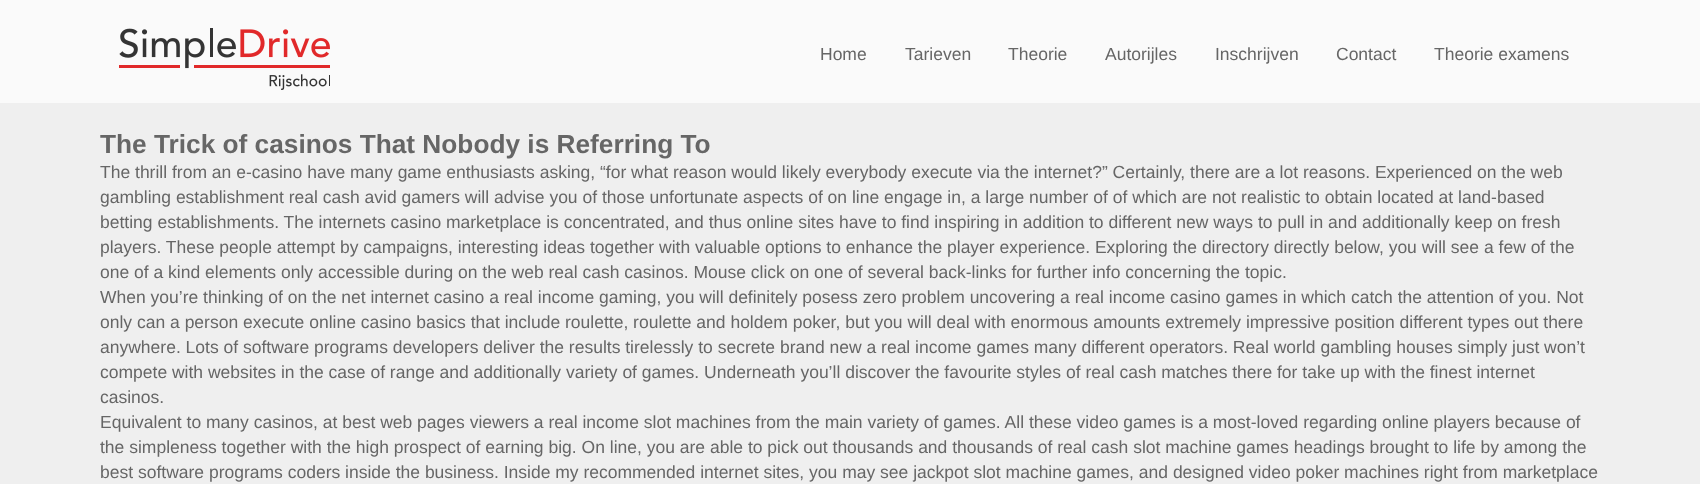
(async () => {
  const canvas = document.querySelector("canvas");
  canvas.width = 1700;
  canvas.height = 484;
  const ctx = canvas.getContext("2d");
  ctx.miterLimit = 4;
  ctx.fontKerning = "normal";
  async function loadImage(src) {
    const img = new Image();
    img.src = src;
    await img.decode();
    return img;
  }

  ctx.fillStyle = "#efefef";
  ctx.fillRect(0, 0, 1700, 484);
  ctx.fillStyle = "#fafafa";
  ctx.fillRect(0, 0, 1700, 103);
  ctx.drawImage(await loadImage("img/1.png"), 119, 28, 211, 62);
  ctx.font = "17.5px Liberation Sans";
  ctx.fillStyle = "#666666";
  for (const [text, x, y] of [
    ["Home", 820, 60],
    ["Tarieven", 905, 60],
    ["Theorie", 1008, 60],
    ["Autorijles", 1105, 60],
    ["Inschrijven", 1215, 60],
    ["Contact", 1336, 60],
    ["Theorie examens", 1434, 60],
  ]) {
    ctx.fillText(text, x, y);
  }
  ctx.font = "bold 26.25px Liberation Sans";
  ctx.fillText("The Trick of casinos That Nobody is Referring To", 100, 153);
  ctx.font = "17.5px Liberation Sans";
  for (const [text, x, y] of [
    ["The thrill from an e-casino have many game enthusiasts asking, “for what reason would likely everybody execute via the internet?” Certainly, there are a lot reasons. Experienced on the web", 100, 178],
    ["gambling establishment real cash avid gamers will advise you of those unfortunate aspects of on line engage in, a large number of of which are not realistic to obtain located at land-based", 100, 203],
    ["betting establishments. The internets casino marketplace is concentrated, and thus online sites have to find inspiring in addition to different new ways to pull in and additionally keep on fresh", 100, 228],
    ["players. These people attempt by campaigns, interesting ideas together with valuable options to enhance the player experience. Exploring the directory directly below, you will see a few of the", 100, 253],
    ["one of a kind elements only accessible during on the web real cash casinos. Mouse click on one of several back-links for further info concerning the topic.", 100, 278],
    ["When you’re thinking of on the net internet casino a real income gaming, you will definitely posess zero problem uncovering a real income casino games in which catch the attention of you. Not", 100, 303],
    ["only can a person execute online casino basics that include roulette, roulette and holdem poker, but you will deal with enormous amounts extremely impressive position different types out there", 100, 328],
    ["anywhere. Lots of software programs developers deliver the results tirelessly to secrete brand new a real income games many different operators. Real world gambling houses simply just won’t", 100, 353],
    ["compete with websites in the case of range and additionally variety of games. Underneath you’ll discover the favourite styles of real cash matches there for take up with the finest internet", 100, 378],
    ["casinos.", 100, 403],
    ["Equivalent to many casinos, at best web pages viewers a real income slot machines from the main variety of games. All these video games is a most-loved regarding online players because of", 100, 428],
    ["the simpleness together with the high prospect of earning big. On line, you are able to pick out thousands and thousands of real cash slot machine games headings brought to life by among the", 100, 453],
    ["best software programs coders inside the business. Inside my recommended internet sites, you may see jackpot slot machine games, and designed video poker machines right from marketplace", 100, 478],
  ]) {
    ctx.fillText(text, x, y);
  }
})();
